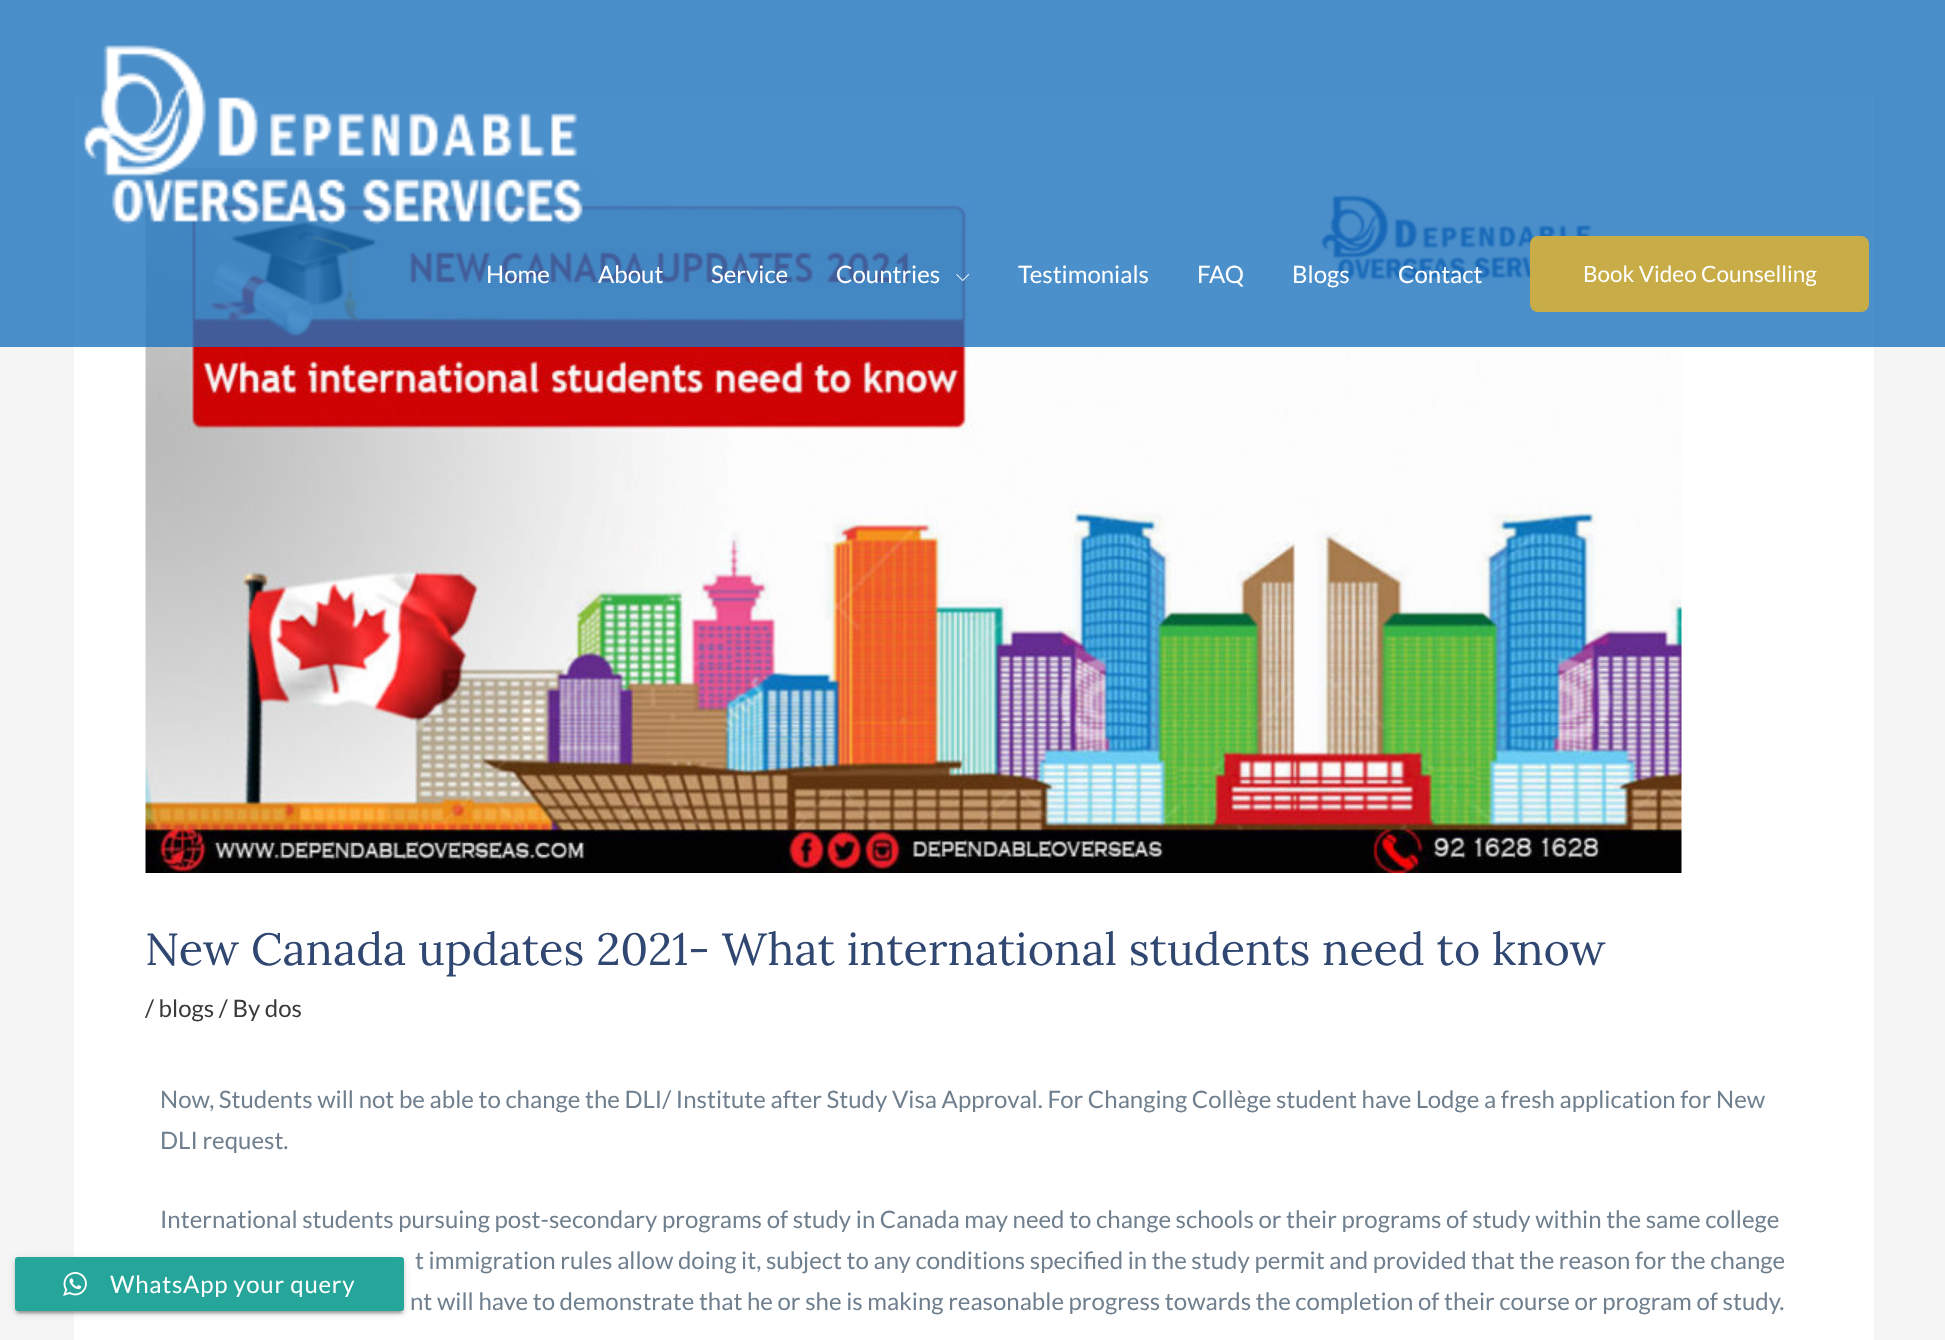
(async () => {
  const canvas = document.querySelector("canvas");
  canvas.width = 1945;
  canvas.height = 1340;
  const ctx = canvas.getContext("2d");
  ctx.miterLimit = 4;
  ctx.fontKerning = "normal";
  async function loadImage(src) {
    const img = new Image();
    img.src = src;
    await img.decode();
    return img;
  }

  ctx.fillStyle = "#f5f5f5";
  ctx.fillRect(0, 0, 1945, 1340);
  ctx.fillStyle = "#ffffff";
  ctx.fillRect(74, 96, 1800, 1244);
  ctx.drawImage(await loadImage("img/3.png"), 145, 168, 1537, 705);
  ctx.fillStyle = "rgba(30, 115, 190, 0.8)";
  ctx.fillRect(0, 0, 1945, 347);
  ctx.drawImage(await loadImage("img/1.png"), 82, 45, 501, 180);
  ctx.drawImage(await loadImage("img/2.png"), 956, 274, 14, 7);
  ctx.fillStyle = "#c8ac48";
  ctx.beginPath();
  ctx.roundRect(1530, 236, 339, 76, 8);
  ctx.fill();
  ctx.fillStyle = "rgba(0, 0, 0, 0.2)";
  ctx.filter = "blur(1px)";
  ctx.beginPath();
  ctx.rect(18, 1265, 383, 48);
  ctx.fill();
  ctx.filter = "none";
  ctx.fillStyle = "rgba(0, 0, 0, 0.12)";
  ctx.filter = "blur(4px)";
  ctx.beginPath();
  ctx.roundRect(15, 1259, 389, 54, 3);
  ctx.fill();
  ctx.filter = "none";
  ctx.fillStyle = "rgba(0, 0, 0, 0.14)";
  ctx.filter = "blur(1.5px)";
  ctx.beginPath();
  ctx.roundRect(15, 1260, 389, 54, 3);
  ctx.fill();
  ctx.filter = "none";
  ctx.fillStyle = "#26a69a";
  ctx.beginPath();
  ctx.roundRect(15, 1257, 389, 54, 3);
  ctx.fill();
  ctx.drawImage(await loadImage("img/4.png"), 63, 1272, 24, 24);
  ctx.font = "24px Lato";
  ctx.fillStyle = "#ffffff";
  for (const [text, x, y] of [
    ["Home", 486, 283],
    ["About", 598, 283],
    ["Service", 711, 283],
    ["Countries", 836, 283],
    ["Testimonials", 1018, 283],
    ["FAQ", 1197, 283],
    ["Blogs", 1292, 283],
    ["Contact", 1398, 283],
  ]) {
    ctx.fillText(text, x, y);
  }
  ctx.font = "22.5px Lato";
  ctx.fillText("Book Video Counselling", 1583, 282);
  ctx.font = "45px Lora";
  ctx.fillStyle = "#304771";
  ctx.fillText("New Canada updates 2021- What international students need to know", 145, 965);
  ctx.font = "24px Lato";
  ctx.fillStyle = "#3a3a3a";
  ctx.fillText("/ blogs / By dos", 145, 1017);
  ctx.fillStyle = "#6f7f8e";
  for (const [text, x, y] of [
    ["Now, Students will not be able to change the DLI/ Institute after Study Visa Approval. For Changing Collège student have Lodge a fresh application for New", 160, 1108],
    ["DLI request.", 160, 1149],
    ["International students pursuing post-secondary programs of study in Canada may need to change schools or their programs of study within the same college", 160, 1228],
    ["t immigration rules allow doing it, subject to any conditions specified in the study permit and provided that the reason for the change", 415, 1269],
    ["nt will have to demonstrate that he or she is making reasonable progress towards the completion of their course or program of study.", 410, 1310],
  ]) {
    ctx.fillText(text, x, y);
  }
  ctx.letterSpacing = "0.75px";
  ctx.fillStyle = "#ffffff";
  ctx.fillText("WhatsApp your query", 110, 1293);
})();
